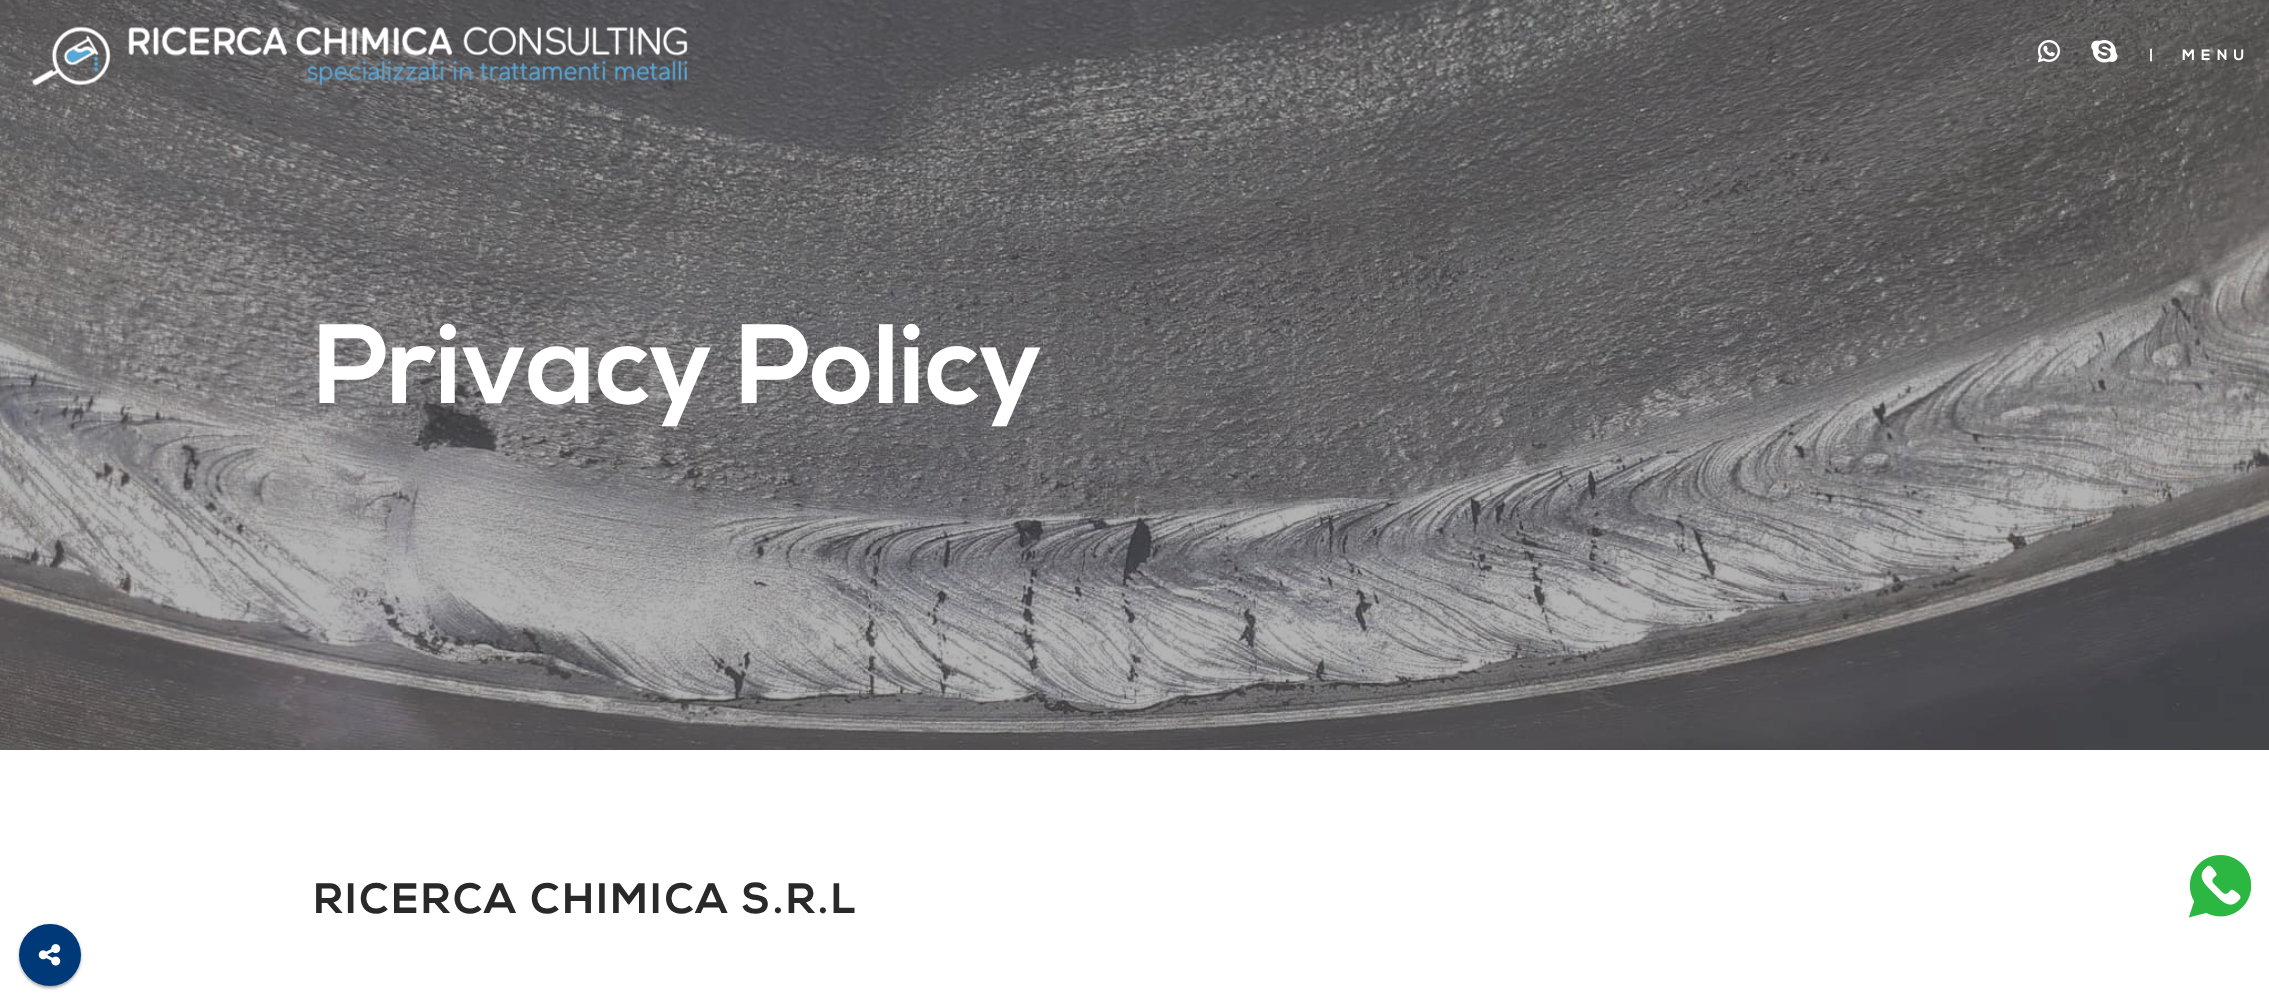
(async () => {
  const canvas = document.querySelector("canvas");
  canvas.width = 2269;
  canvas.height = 1005;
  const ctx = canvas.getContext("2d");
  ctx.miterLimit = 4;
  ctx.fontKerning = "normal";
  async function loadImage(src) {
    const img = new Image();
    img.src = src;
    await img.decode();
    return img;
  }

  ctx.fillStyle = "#ffffff";
  ctx.fillRect(0, 0, 2269, 1005);
  ctx.drawImage(await loadImage("img/4.png"), 0, 0, 2269, 750);
  ctx.drawImage(await loadImage("img/1.png"), 32, 26, 656, 60);
  ctx.drawImage(await loadImage("img/2.png"), 2038, 40, 22, 23);
  ctx.drawImage(await loadImage("img/3.png"), 2091, 40, 27, 23);
  ctx.drawImage(await loadImage("img/5.png"), 2189, 855, 62, 63);
  ctx.fillStyle = "rgba(0, 0, 0, 0.24)";
  ctx.filter = "blur(1px)";
  ctx.beginPath();
  ctx.roundRect(19, 925, 62, 63, 31);
  ctx.fill();
  ctx.filter = "none";
  ctx.fillStyle = "rgba(0, 0, 0, 0.12)";
  ctx.filter = "blur(2px)";
  ctx.beginPath();
  ctx.roundRect(19, 925, 62, 63, 31);
  ctx.fill();
  ctx.filter = "none";
  ctx.fillStyle = "#003978";
  ctx.beginPath();
  ctx.arc(50, 955, 31, 0, Math.PI * 2);
  ctx.fill();
  ctx.drawImage(await loadImage("img/6.png"), 38, 944, 23, 22);
  ctx.letterSpacing = "6px";
  ctx.font = "bold 15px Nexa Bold";
  ctx.fillStyle = "#ffffff";
  ctx.fillText("|", 2149, 60);
  ctx.fillText("MENU", 2182, 60);
  ctx.letterSpacing = "0px";
  ctx.font = "bold 112.5px Nexa Bold";
  ctx.fillText("Privacy Policy", 314, 403);
  ctx.letterSpacing = "3px";
  ctx.font = "bold 42.5px Nexa Bold";
  ctx.fillStyle = "#292929";
  ctx.fillText("RICERCA CHIMICA S.R.L", 314, 913);
})();
